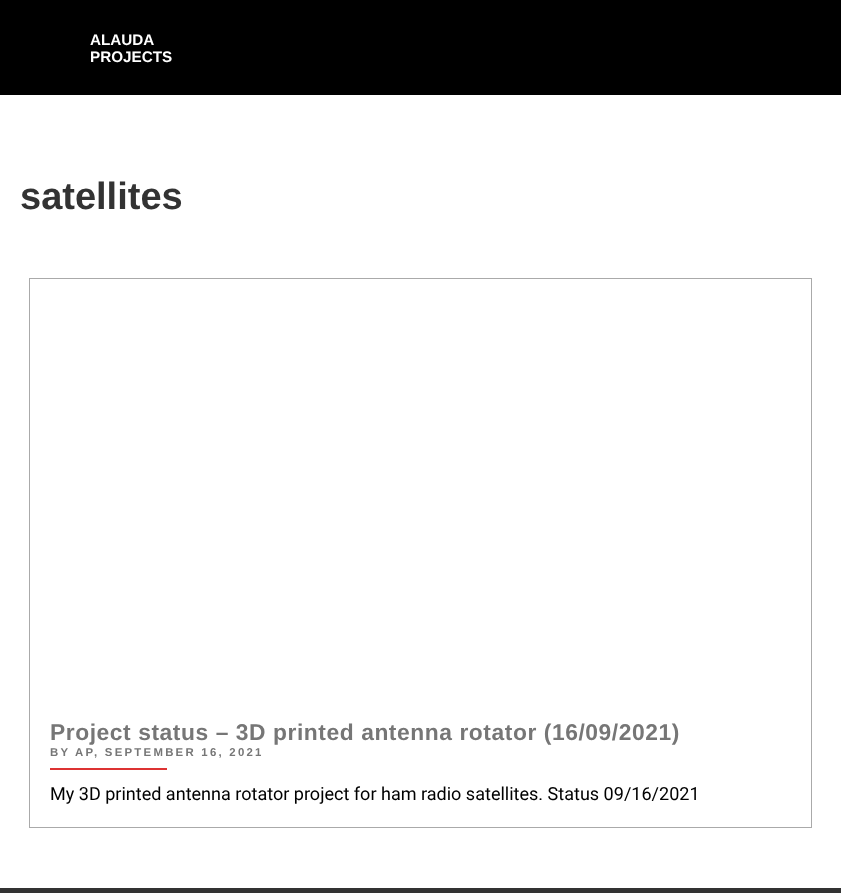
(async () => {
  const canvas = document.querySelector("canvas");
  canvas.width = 841;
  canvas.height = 893;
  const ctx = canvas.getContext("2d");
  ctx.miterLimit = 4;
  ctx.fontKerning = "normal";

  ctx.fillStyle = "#ffffff";
  ctx.fillRect(0, 0, 841, 893);
  ctx.fillStyle = "#000000";
  ctx.fillRect(0, 0, 841, 95);
  ctx.strokeStyle = "#aaaaaa";
  ctx.strokeRect(29.5, 278.5, 782, 549);
  ctx.fillStyle = "#dd3333";
  ctx.fillRect(50, 768, 117, 2);
  ctx.fillStyle = "#333333";
  ctx.fillRect(0, 888, 841, 5);
  ctx.font = "bold 15.25px Liberation Sans";
  ctx.fillStyle = "#ffffff";
  ctx.fillText("ALAUDA", 90, 45);
  ctx.fillText("PROJECTS", 90, 62);
  ctx.font = "bold 38px Liberation Sans";
  ctx.fillStyle = "#333333";
  ctx.fillText("satellites", 20, 209);
  ctx.letterSpacing = "0.57px";
  ctx.font = "bold 22.8px Liberation Sans";
  ctx.fillStyle = "#767676";
  ctx.fillText("Project status – 3D printed antenna rotator (16/09/2021)", 50, 740);
  ctx.letterSpacing = "2.25px";
  ctx.font = "bold 11.4px Liberation Sans";
  ctx.fillText("BY AP, SEPTEMBER 16, 2021", 50, 756);
  ctx.letterSpacing = "0px";
  ctx.font = "18.05px Roboto";
  ctx.fillStyle = "#000000";
  ctx.fillText("My 3D printed antenna rotator project for ham radio satellites. Status 09/16/2021", 50, 800);
})();
